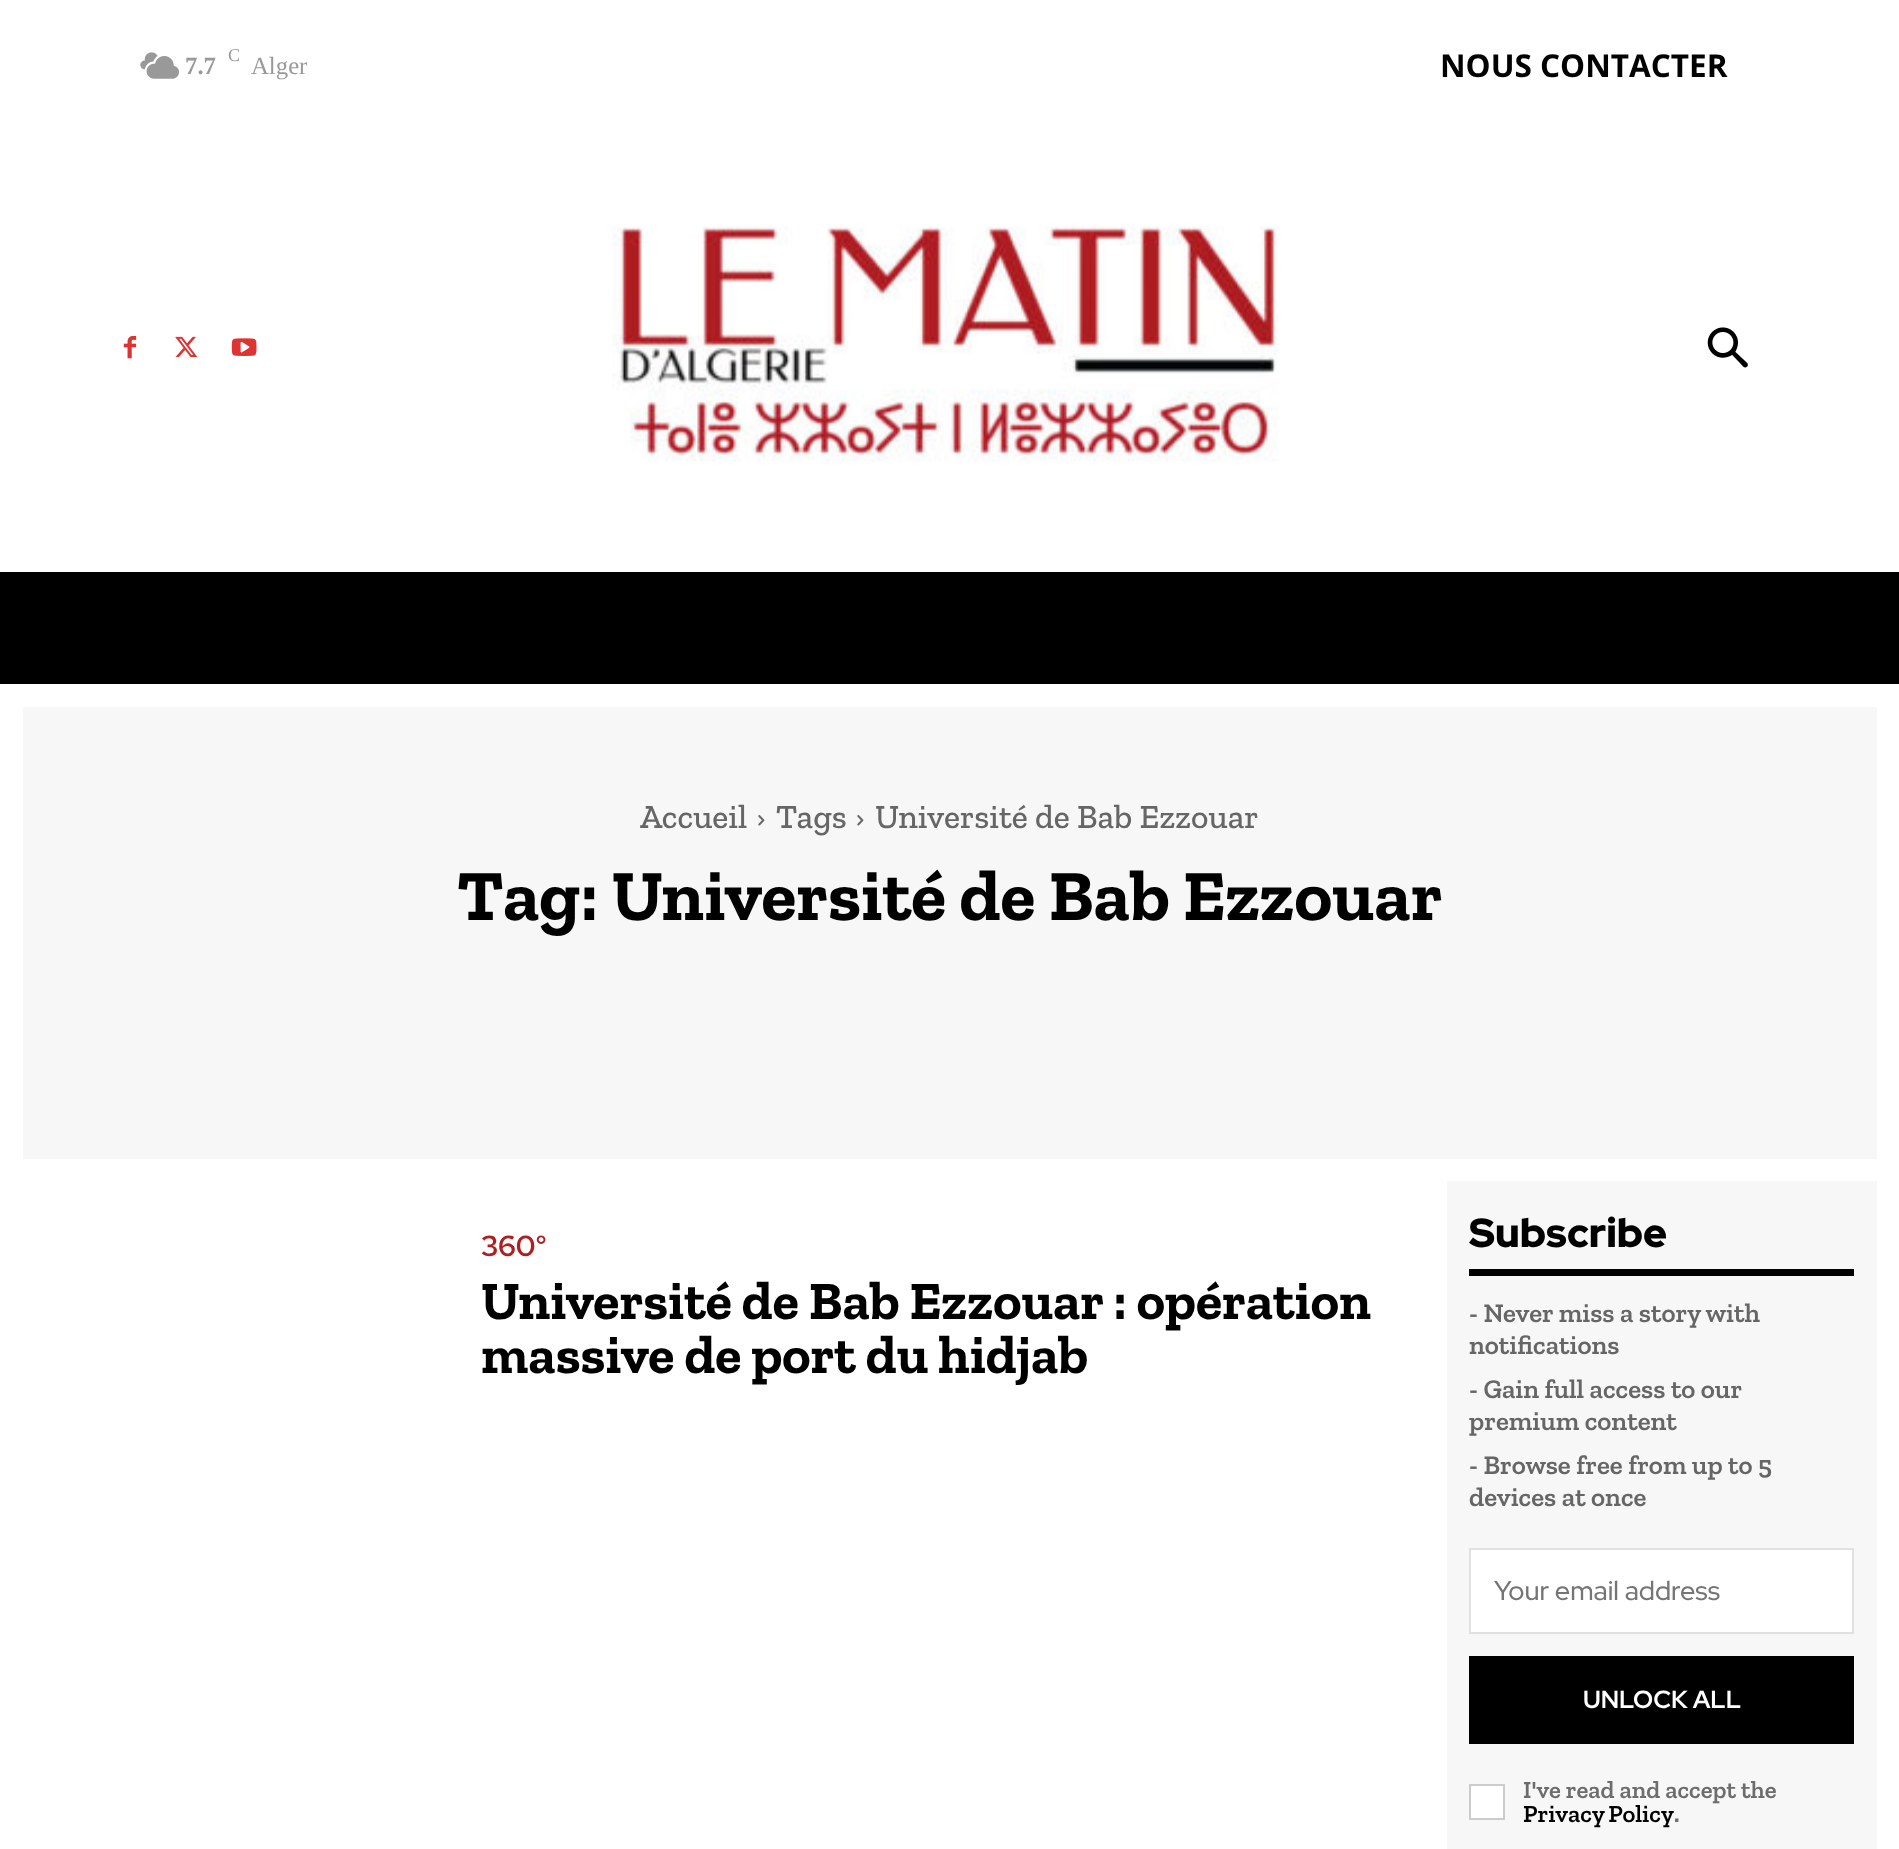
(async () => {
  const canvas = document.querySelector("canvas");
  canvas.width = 1899;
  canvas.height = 1849;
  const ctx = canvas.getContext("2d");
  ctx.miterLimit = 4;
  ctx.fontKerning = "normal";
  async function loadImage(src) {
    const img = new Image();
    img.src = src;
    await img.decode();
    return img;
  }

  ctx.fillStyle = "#ffffff";
  ctx.fillRect(0, 0, 1899, 1849);
  ctx.drawImage(await loadImage("img/1.png"), 140, 52, 39, 27);
  ctx.drawImage(await loadImage("img/2.png"), 123, 336, 14, 23);
  ctx.drawImage(await loadImage("img/3.png"), 175, 336, 23, 21);
  ctx.drawImage(await loadImage("img/4.png"), 231, 338, 26, 18);
  ctx.drawImage(await loadImage("img/5.png"), 612, 226, 667, 236);
  ctx.drawImage(await loadImage("img/6.png"), 1707, 327, 41, 41);
  ctx.fillStyle = "#000000";
  ctx.fillRect(0, 572, 1899, 112);
  ctx.fillStyle = "#f7f7f7";
  ctx.fillRect(23, 707, 1854, 452);
  ctx.drawImage(await loadImage("img/7.png"), 758, 815, 7, 11);
  ctx.drawImage(await loadImage("img/7.png"), 857, 815, 7, 11);
  ctx.fillRect(1447, 1181, 430, 668);
  ctx.fillStyle = "#000000";
  ctx.fillRect(1469, 1269, 385, 7);
  ctx.fillStyle = "#ffffff";
  ctx.beginPath();
  ctx.rect(1470, 1549, 383, 84);
  ctx.fill();
  ctx.strokeStyle = "#e1e1e1";
  ctx.lineWidth = 2;
  ctx.stroke();
  ctx.fillStyle = "#000000";
  ctx.fillRect(1469, 1656, 385, 88);
  ctx.fillStyle = "#ffffff";
  ctx.beginPath();
  ctx.rect(1470, 1785, 34, 34);
  ctx.fill();
  ctx.strokeStyle = "#cccccc";
  ctx.stroke();
  ctx.font = "18px Liberation Serif";
  ctx.fillStyle = "#999999";
  ctx.fillText("C", 228, 61);
  ctx.font = "bold 24.75px Liberation Serif";
  ctx.fillText("7.7", 185, 74);
  ctx.font = "24.75px Liberation Serif";
  ctx.fillText("Alger", 251, 74);
  ctx.font = "bold 31.5px Open Sans";
  ctx.fillStyle = "#000000";
  ctx.fillText("NOUS CONTACTER", 1440, 77);
  ctx.font = "500 33.75px Zilla Slab";
  ctx.fillStyle = "#666666";
  for (const [text, x, y] of [
    ["Accueil", 640, 828],
    ["Tags", 776, 828],
    ["Université de Bab Ezzouar", 875, 828],
  ]) {
    ctx.fillText(text, x, y);
  }
  ctx.font = "bold 72px Zilla Slab";
  ctx.fillStyle = "#000000";
  ctx.fillText("Tag: Université de Bab Ezzouar", 457, 920);
  ctx.font = "bold 29px Red Hat Display";
  ctx.fillStyle = "#ae1f24";
  ctx.fillText("360°", 481, 1256);
  ctx.font = "bold 54px Zilla Slab";
  ctx.fillStyle = "#000000";
  ctx.fillText("Université de Bab Ezzouar : opération", 481, 1319);
  ctx.fillText("massive de port du hidjab", 481, 1373);
  ctx.font = "900 40.5px Red Hat Display";
  ctx.fillText("Subscribe", 1469, 1247);
  ctx.font = "600 27px Zilla Slab";
  ctx.fillStyle = "#666666";
  for (const [text, x, y] of [
    ["- Never miss a story with", 1469, 1322],
    ["notifications", 1469, 1354],
    ["- Gain full access to our", 1469, 1398],
    ["premium content", 1469, 1430],
    ["- Browse free from up to 5", 1469, 1474],
    ["devices at once", 1469, 1506],
  ]) {
    ctx.fillText(text, x, y);
  }
  ctx.font = "500 27px Red Hat Display";
  ctx.fillStyle = "#757575";
  ctx.fillText("Your email address", 1494, 1600);
  ctx.font = "bold 24.75px Red Hat Display";
  ctx.fillStyle = "#ffffff";
  ctx.fillText("UNLOCK ALL", 1583, 1708);
  ctx.font = "600 24.75px Zilla Slab";
  ctx.fillStyle = "#6d6d6d";
  ctx.fillText("I've read and accept the", 1523, 1798);
  ctx.wordSpacing = "-1px";
  ctx.fillStyle = "#000000";
  ctx.fillText("Privacy Policy", 1523, 1822);
  ctx.wordSpacing = "0px";
  ctx.fillStyle = "#6d6d6d";
  ctx.fillText(".", 1674, 1822);
})();
